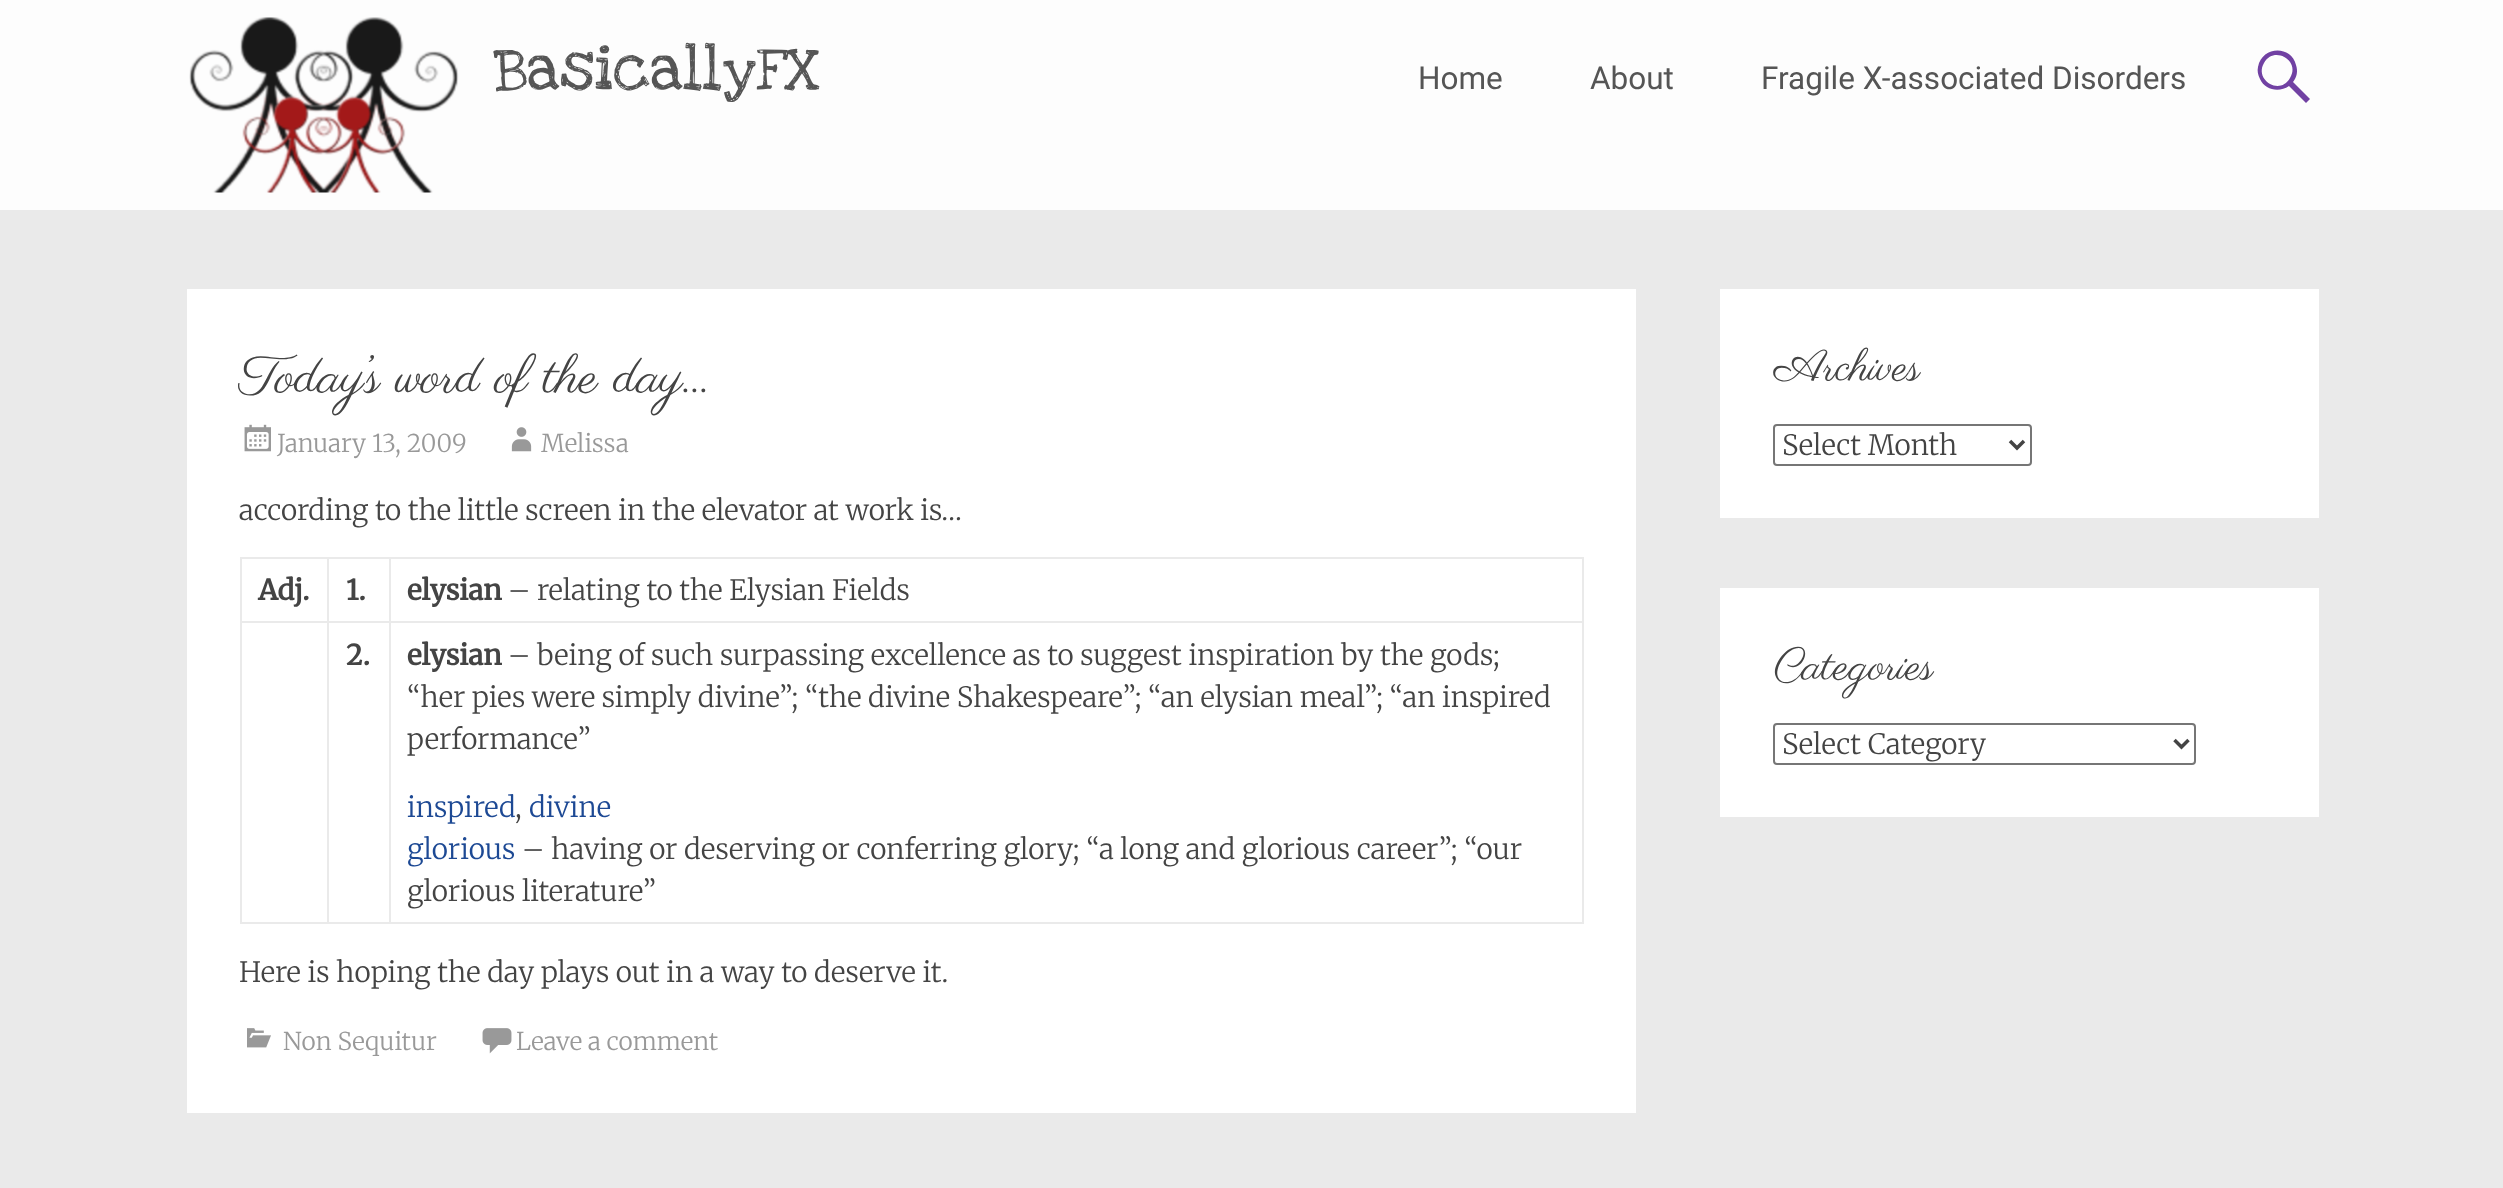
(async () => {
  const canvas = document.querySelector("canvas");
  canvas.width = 2503;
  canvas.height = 1188;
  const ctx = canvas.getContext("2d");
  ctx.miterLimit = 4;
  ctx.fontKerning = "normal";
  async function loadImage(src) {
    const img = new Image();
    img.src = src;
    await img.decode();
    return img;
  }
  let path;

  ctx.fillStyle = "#eaeaea";
  ctx.fillRect(0, 0, 2503, 1188);
  ctx.fillStyle = "#fdfdfd";
  ctx.fillRect(0, 0, 2503, 210);
  ctx.drawImage(await loadImage("img/1.png"), 189, 17, 270, 176);
  ctx.fillStyle = "#7141a3";
  path = new Path2D("M2310 99L2306 103L2289 86C2279 93 2265 90 2260 79C2258 75 2257 71 2258 67C2262 46 2291 45 2296 65C2298 71 2297 77 2293 82ZM2264 63C2254 80 2280 96 2290 78C2301 61 2274 45 2264 63Z");
  ctx.fill(path);
  ctx.fillStyle = "#ffffff";
  ctx.fillRect(187, 289, 1449, 824);
  ctx.drawImage(await loadImage("img/2.png"), 244, 424, 27, 28);
  ctx.drawImage(await loadImage("img/3.png"), 511, 427, 21, 25);
  for (const [x, y, w, h, color] of [
    [389, 557, 1195, 2, "#eaeaea"],
    [389, 621, 1195, 2, "#eaeaea"],
    [1582, 621, 2, 303, "#eaeaea"],
    [389, 922, 1195, 2, "#eaeaea"],
    [389, 621, 2, 303, "#eaeaea"],
    [327, 621, 63, 2, "#eaeaea"],
    [389, 557, 2, 66, "#eaeaea"],
    [327, 557, 63, 2, "#eaeaea"],
    [327, 922, 63, 2, "#eaeaea"],
    [327, 621, 2, 303, "#eaeaea"],
    [240, 621, 89, 2, "#eaeaea"],
    [327, 557, 2, 66, "#eaeaea"],
    [240, 557, 89, 2, "#eaeaea"],
    [240, 922, 89, 2, "#eaeaea"],
    [240, 621, 2, 303, "#eaeaea"],
    [240, 557, 2, 66, "#eaeaea"],
    [1582, 557, 2, 66, "#eaeaea"],
  ]) {
    ctx.fillStyle = color;
    ctx.fillRect(x, y, w, h);
  }
  ctx.drawImage(await loadImage("img/4.png"), 247, 1028, 24, 20);
  ctx.drawImage(await loadImage("img/5.png"), 482, 1028, 30, 26);
  ctx.fillStyle = "#ffffff";
  ctx.fillRect(1720, 289, 599, 229);
  ctx.beginPath();
  ctx.roundRect(1774, 425, 257, 40, 3);
  ctx.strokeStyle = "#767676";
  ctx.lineWidth = 2;
  ctx.stroke();
  path = new Path2D("M2010 441L2017 448L2024 441");
  ctx.strokeStyle = "#444444";
  ctx.lineWidth = 3.5;
  ctx.stroke(path);
  ctx.fillRect(1720, 588, 599, 229);
  ctx.beginPath();
  ctx.roundRect(1774, 724, 421, 40, 3);
  ctx.strokeStyle = "#767676";
  ctx.lineWidth = 2;
  ctx.stroke();
  path = new Path2D("M2174.5 740L2181.5 747L2188.5 740");
  ctx.strokeStyle = "#444444";
  ctx.lineWidth = 3.5;
  ctx.stroke(path);
  ctx.font = "63px Love Ya Like A Sister";
  ctx.fillStyle = "#555555";
  ctx.fillText("BasicallyFX", 494, 89);
  ctx.font = "31.5px Roboto";
  for (const [text, x, y] of [
    ["Home", 1418, 89],
    ["About", 1590, 89],
    ["Fragile X-associated Disorders", 1761, 89],
  ]) {
    ctx.fillText(text, x, y);
  }
  ctx.font = "52.5px Parisienne";
  ctx.fillStyle = "#444444";
  ctx.fillText("Today’s word of the day…", 239, 392);
  ctx.font = "300 24.5px Merriweather";
  ctx.fillStyle = "#999999";
  ctx.fillText("January 13, 2009", 277, 452);
  ctx.fillText("Melissa", 541, 452);
  ctx.font = "300 28px Merriweather";
  ctx.fillStyle = "#444444";
  ctx.fillText("according to the little screen in the elevator at work is…", 239, 520);
  ctx.font = "bold 28px Merriweather";
  for (const [text, x, y] of [
    ["Adj.", 258, 600],
    ["1.", 346, 600],
    ["elysian", 407, 600],
  ]) {
    ctx.fillText(text, x, y);
  }
  ctx.font = "300 28px Merriweather";
  ctx.fillText("– relating to the Elysian Fields", 508, 600);
  ctx.font = "bold 28px Merriweather";
  ctx.fillText("2.", 346, 665);
  ctx.fillText("elysian", 407, 665);
  ctx.font = "300 28px Merriweather";
  for (const [text, x, y] of [
    ["– being of such surpassing excellence as to suggest inspiration by the gods;", 508, 665],
    ["“her pies were simply divine”; “the divine Shakespeare”; “an elysian meal”; “an inspired", 407, 707],
    ["performance”", 407, 749],
  ]) {
    ctx.fillText(text, x, y);
  }
  ctx.fillStyle = "#1d4994";
  ctx.fillText("inspired", 407, 817);
  ctx.fillStyle = "#444444";
  ctx.fillText(",", 515, 817);
  ctx.fillStyle = "#1d4994";
  ctx.fillText("divine", 529, 817);
  ctx.fillText("glorious", 407, 859);
  ctx.fillStyle = "#444444";
  for (const [text, x, y] of [
    ["– having or deserving or conferring glory; “a long and glorious career”; “our", 522, 859],
    ["glorious literature”", 407, 901],
    ["Here is hoping the day plays out in a way to deserve it.", 239, 982],
  ]) {
    ctx.fillText(text, x, y);
  }
  ctx.font = "300 24.5px Merriweather";
  ctx.fillStyle = "#999999";
  ctx.fillText("Non Sequitur", 283, 1050);
  ctx.fillText("Leave a comment", 516, 1050);
  ctx.font = "44px Parisienne";
  ctx.fillStyle = "#444444";
  ctx.fillText("Archives", 1774, 380);
  ctx.font = "300 28px Merriweather";
  ctx.fillText("Select Month", 1782, 455);
  ctx.font = "44px Parisienne";
  ctx.fillText("Categories", 1774, 679);
  ctx.font = "300 28px Merriweather";
  ctx.fillText("Select Category", 1782, 754);
})();
